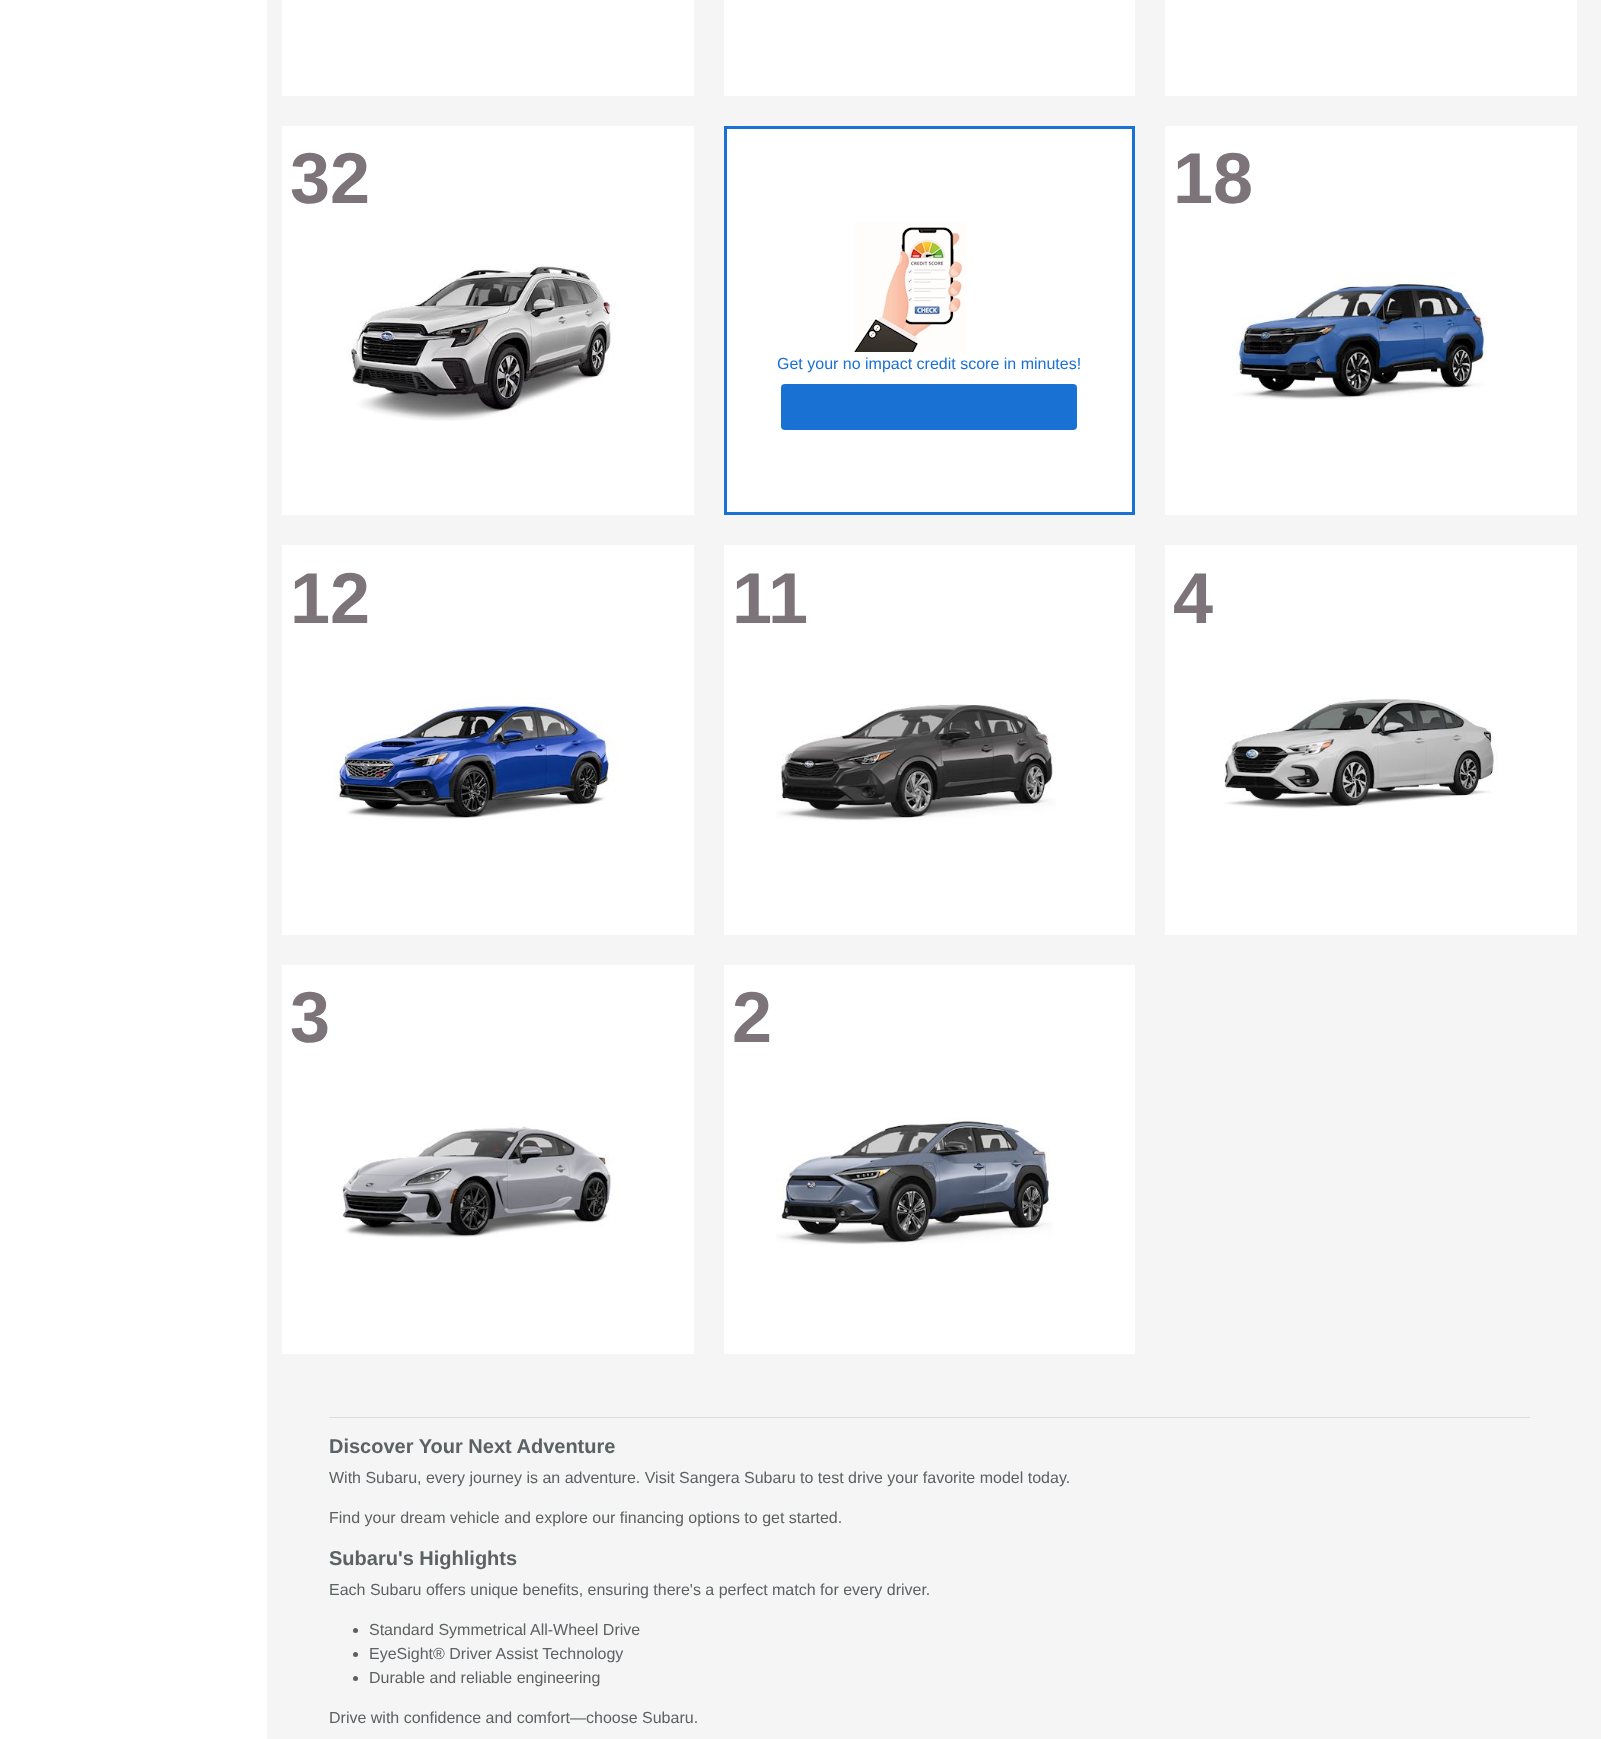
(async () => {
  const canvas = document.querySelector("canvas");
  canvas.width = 1601;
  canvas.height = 1739;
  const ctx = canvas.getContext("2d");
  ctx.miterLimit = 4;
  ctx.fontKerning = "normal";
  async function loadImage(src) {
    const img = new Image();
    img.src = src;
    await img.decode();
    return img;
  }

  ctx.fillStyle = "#f5f5f5";
  ctx.fillRect(0, 0, 1601, 1739);
  for (const [x, y, w, h, color] of [
    [0, 0, 267, 1739, "#ffffff"],
    [282, 0, 412, 96, "#ffffff"],
    [724, 0, 411, 96, "#ffffff"],
    [1165, 0, 412, 96, "#ffffff"],
    [282, 126, 412, 389, "#ffffff"],
  ]) {
    ctx.fillStyle = color;
    ctx.fillRect(x, y, w, h);
  }
  ctx.drawImage(await loadImage("img/1.png"), 347, 266, 268, 155);
  ctx.fillRect(1165, 126, 412, 389);
  ctx.drawImage(await loadImage("img/2.png"), 1230, 279, 256, 121);
  ctx.strokeStyle = "#1971d4";
  ctx.lineWidth = 3;
  ctx.strokeRect(725.5, 127.5, 408, 386);
  ctx.fillRect(727, 129, 405, 383);
  ctx.drawImage(await loadImage("img/3.png"), 854, 222, 112, 130);
  ctx.fillStyle = "#1971d4";
  ctx.beginPath();
  ctx.roundRect(781, 384, 296, 46, 4);
  ctx.fill();
  ctx.fillStyle = "#ffffff";
  ctx.fillRect(282, 545, 412, 390);
  ctx.drawImage(await loadImage("img/4.png"), 334, 697, 281, 122);
  ctx.fillRect(724, 545, 411, 390);
  ctx.drawImage(await loadImage("img/5.png"), 776, 703, 280, 118);
  ctx.fillRect(1165, 545, 412, 390);
  ctx.drawImage(await loadImage("img/6.png"), 1223, 698, 275, 111);
  ctx.fillRect(282, 965, 412, 389);
  ctx.drawImage(await loadImage("img/7.png"), 340, 1126, 275, 112);
  ctx.fillRect(724, 965, 411, 389);
  ctx.drawImage(await loadImage("img/8.png"), 776, 1117, 277, 128);
  ctx.fillStyle = "#dddddd";
  ctx.fillRect(329, 1417, 1201, 1);
  ctx.fillStyle = "#5c6163";
  ctx.beginPath();
  ctx.arc(355.5, 1630.5, 2.5, 0, Math.PI * 2);
  ctx.fill();
  ctx.beginPath();
  ctx.arc(355.5, 1654.5, 2.5, 0, Math.PI * 2);
  ctx.fill();
  ctx.beginPath();
  ctx.arc(355.5, 1678.5, 2.5, 0, Math.PI * 2);
  ctx.fill();
  ctx.font = "bold 72px Liberation Sans";
  ctx.fillStyle = "#7c7479";
  ctx.fillText("32", 290, 203);
  ctx.fillText("18", 1173, 203);
  ctx.font = "16px Liberation Sans";
  ctx.fillStyle = "#1971d4";
  ctx.fillText("Get your no impact credit score in minutes!", 777, 369);
  ctx.font = "bold 72px Liberation Sans";
  ctx.fillStyle = "#7c7479";
  for (const [text, x, y] of [
    ["12", 290, 623],
    ["11", 732, 623],
    ["4", 1173, 623],
    ["3", 290, 1042],
    ["2", 732, 1042],
  ]) {
    ctx.fillText(text, x, y);
  }
  ctx.font = "bold 20px Liberation Sans";
  ctx.fillStyle = "#5c6163";
  ctx.fillText("Discover Your Next Adventure", 329, 1453);
  ctx.font = "16px Liberation Sans";
  ctx.fillText("With Subaru, every journey is an adventure. Visit Sangera Subaru to test drive your favorite model today.", 329, 1483);
  ctx.fillText("Find your dream vehicle and explore our financing options to get started.", 329, 1523);
  ctx.font = "bold 20px Liberation Sans";
  ctx.fillText("Subaru's Highlights", 329, 1565);
  ctx.font = "16px Liberation Sans";
  for (const [text, x, y] of [
    ["Each Subaru offers unique benefits, ensuring there's a perfect match for every driver.", 329, 1595],
    ["Standard Symmetrical All-Wheel Drive", 369, 1635],
    ["EyeSight® Driver Assist Technology", 369, 1659],
    ["Durable and reliable engineering", 369, 1683],
    ["Drive with confidence and comfort—choose Subaru.", 329, 1723],
  ]) {
    ctx.fillText(text, x, y);
  }
})();
